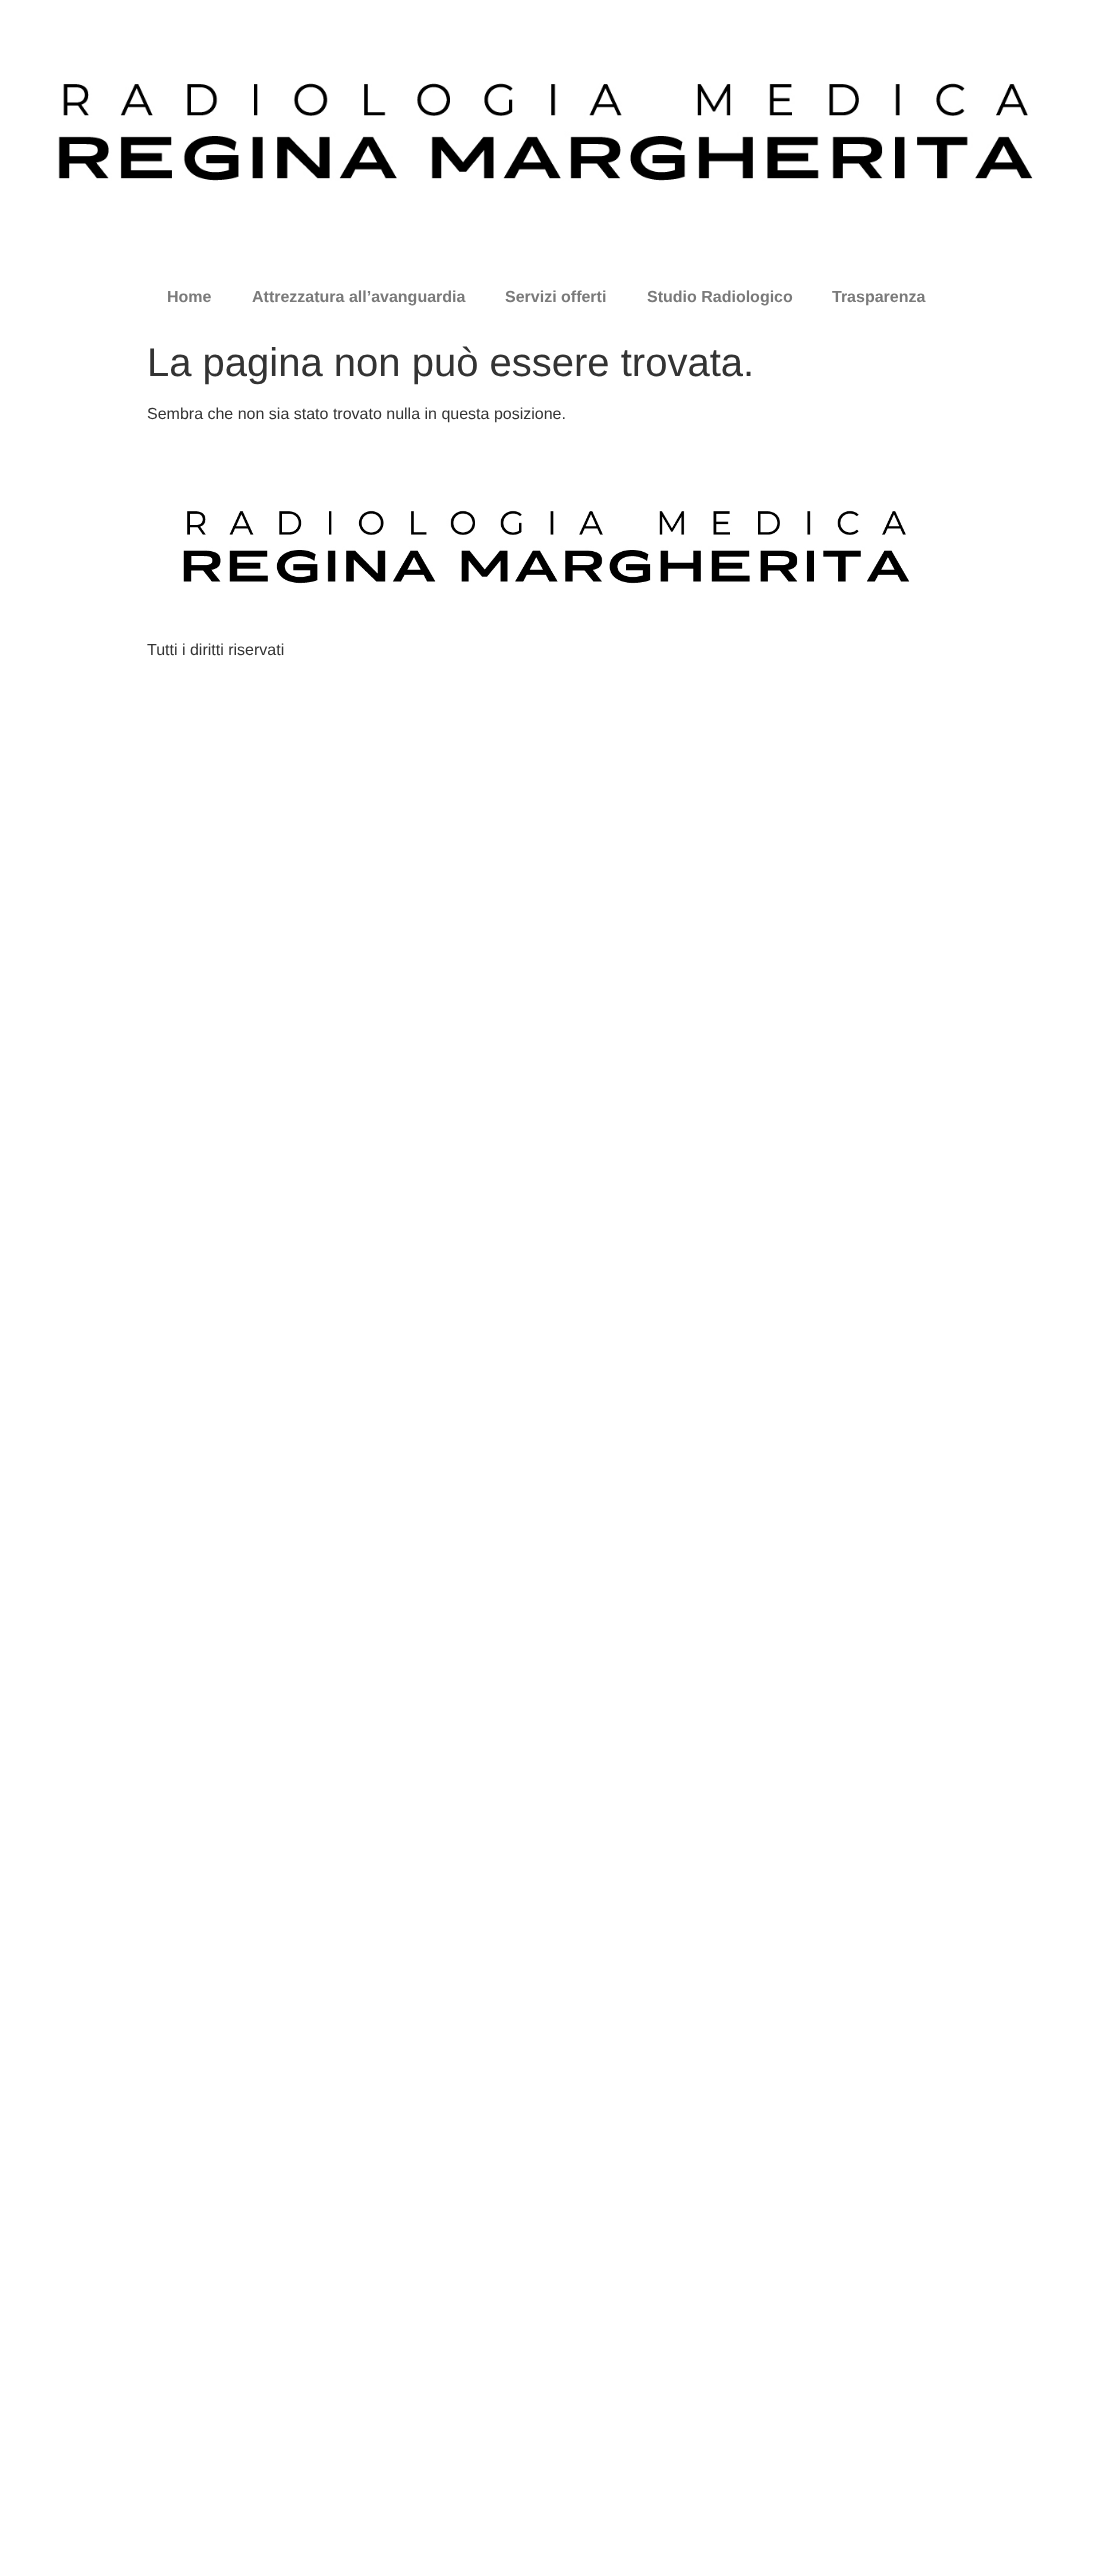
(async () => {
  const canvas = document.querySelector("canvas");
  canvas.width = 1093;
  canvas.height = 2549;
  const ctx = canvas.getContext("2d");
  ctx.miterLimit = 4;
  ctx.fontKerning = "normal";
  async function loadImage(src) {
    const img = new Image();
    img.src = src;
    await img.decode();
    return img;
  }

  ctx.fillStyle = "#ffffff";
  ctx.fillRect(0, 0, 1093, 2549);
  ctx.drawImage(await loadImage("img/1.png"), 58, 83, 975, 98);
  ctx.drawImage(await loadImage("img/2.png"), 183, 510, 727, 74);
  ctx.font = "bold 16px Liberation Sans";
  ctx.fillStyle = "#7a7a7a";
  for (const [text, x, y] of [
    ["Home", 167, 302],
    ["Attrezzatura all’avanguardia", 252, 302],
    ["Servizi offerti", 505, 302],
    ["Studio Radiologico", 647, 302],
    ["Trasparenza", 832, 302],
  ]) {
    ctx.fillText(text, x, y);
  }
  ctx.font = "40px Liberation Sans";
  ctx.fillStyle = "#333333";
  ctx.fillText("La pagina non può essere trovata.", 147, 376);
  ctx.font = "16px Liberation Sans";
  ctx.fillText("Sembra che non sia stato trovato nulla in questa posizione.", 147, 419);
  ctx.fillText("Tutti i diritti riservati", 147, 655);
})();
